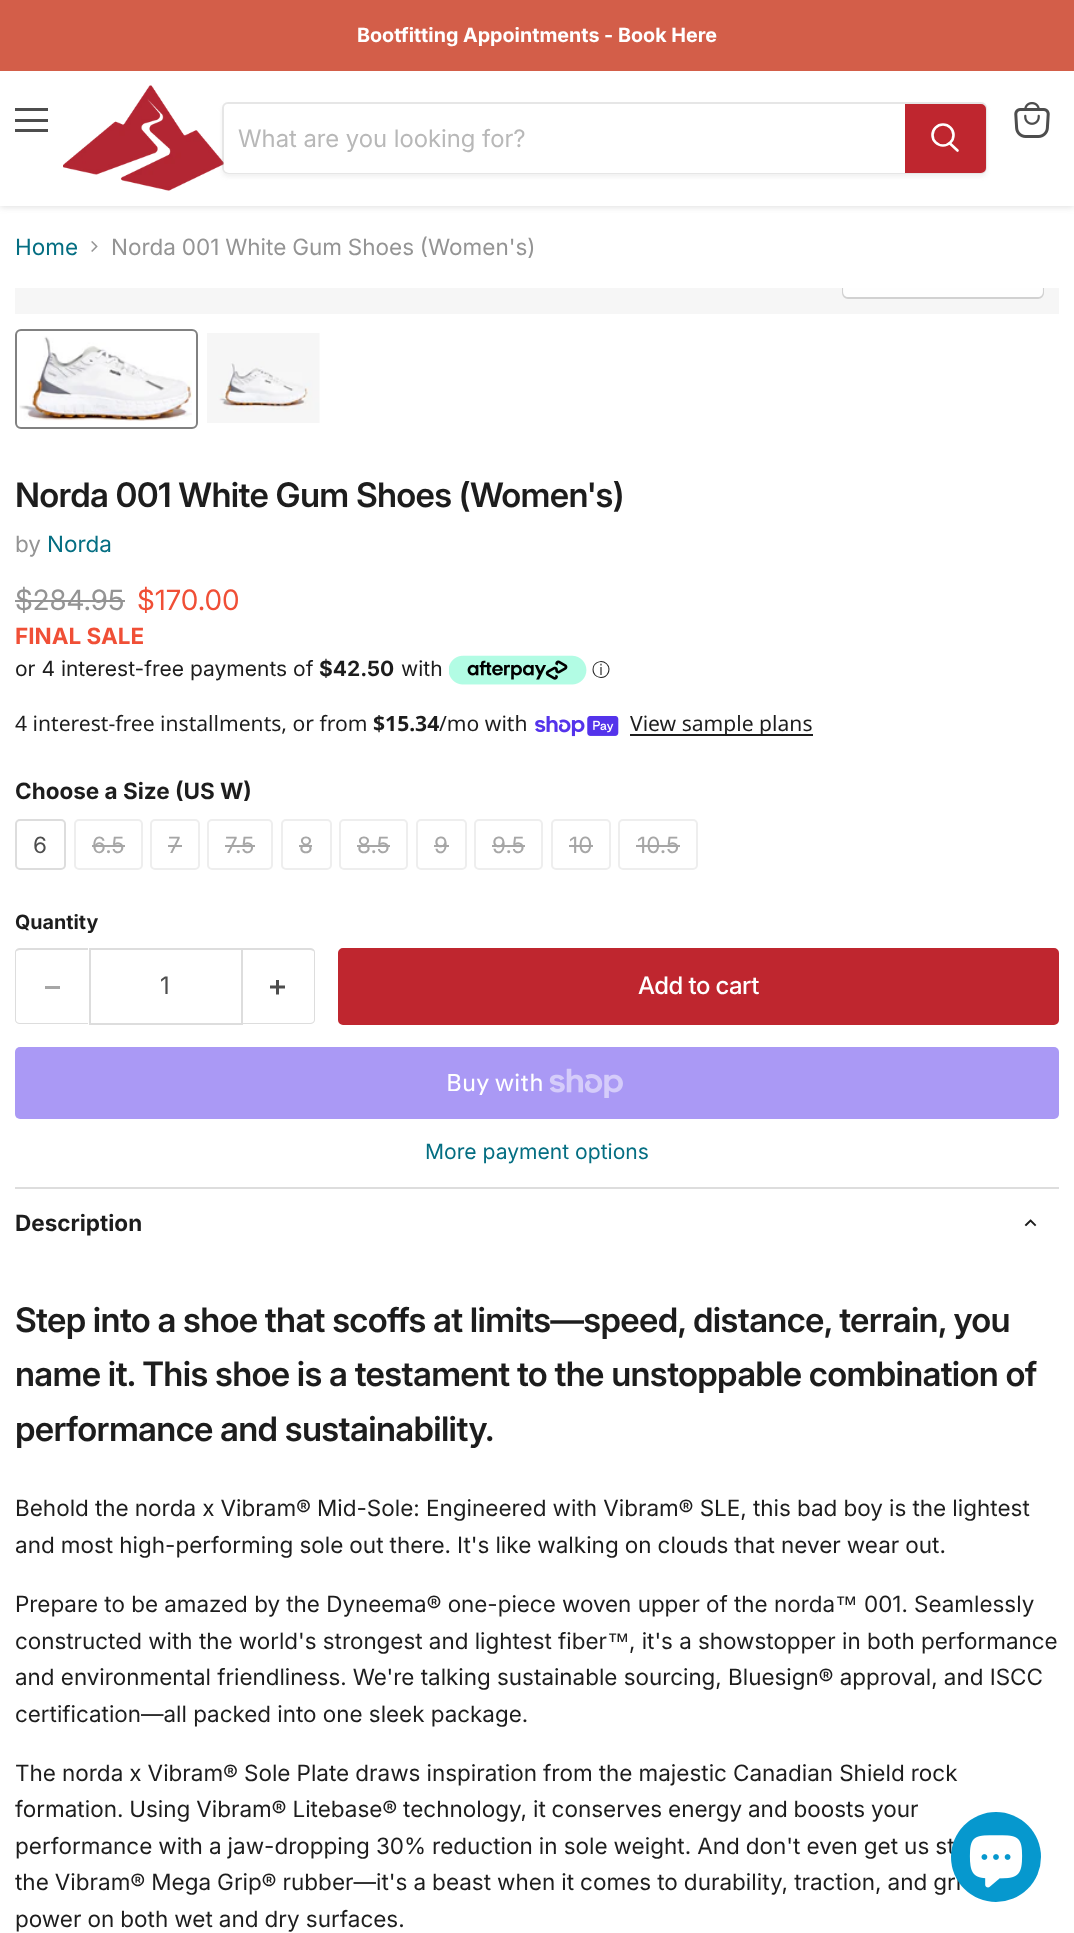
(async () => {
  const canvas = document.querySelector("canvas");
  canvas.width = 1074;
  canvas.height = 1933;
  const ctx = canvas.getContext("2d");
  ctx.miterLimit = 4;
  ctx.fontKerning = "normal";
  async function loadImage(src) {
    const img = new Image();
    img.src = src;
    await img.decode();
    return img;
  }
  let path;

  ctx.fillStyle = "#ffffff";
  ctx.fillRect(0, 0, 1074, 1933);
  ctx.fillStyle = "rgba(128, 128, 128, 0.25)";
  ctx.filter = "blur(3px)";
  ctx.beginPath();
  ctx.rect(0, 72, 1074, 135);
  ctx.fill();
  ctx.filter = "none";
  for (const [x, y, w, h, color] of [
    [0, 0, 1074, 71, "#d35e49"],
    [0, 71, 1074, 135, "#ffffff"],
    [15, 108, 33, 3, "#4d4d4d"],
    [15, 119, 33, 3, "#4d4d4d"],
    [15, 129, 33, 3, "#4d4d4d"],
  ]) {
    ctx.fillStyle = color;
    ctx.fillRect(x, y, w, h);
  }
  ctx.drawImage(await loadImage("img/1.png"), 1014, 102, 36, 36);
  ctx.drawImage(await loadImage("img/2.png"), 63, 85, 161, 106);
  ctx.save();
  path = new Path2D("M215 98H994V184H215ZM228 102H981C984.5 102 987 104.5 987 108V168C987 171.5 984.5 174 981 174H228C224.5 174 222 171.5 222 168V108C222 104.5 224.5 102 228 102Z");
  ctx.clip(path, "evenodd");
  ctx.fillStyle = "rgba(128, 128, 128, 0.11)";
  ctx.filter = "blur(2px)";
  ctx.beginPath();
  ctx.roundRect(222, 105, 765, 72, 6);
  ctx.fill();
  ctx.filter = "none";
  ctx.restore();
  ctx.beginPath();
  ctx.roundRect(223, 103, 763, 70, 5);
  ctx.strokeStyle = "rgba(128, 128, 128, 0.2)";
  ctx.lineWidth = 2;
  ctx.stroke();
  ctx.fillStyle = "#ffffff";
  ctx.beginPath();
  ctx.roundRect(224, 104, 681, 69, [5, 0, 0, 5]);
  ctx.fill();
  ctx.fillStyle = "#bf262f";
  ctx.beginPath();
  ctx.roundRect(906, 105, 79, 67, [0, 4, 4, 0]);
  ctx.fill();
  ctx.strokeStyle = "#bf262f";
  ctx.stroke();
  path = new Path2D("M957.5 150.5L950 143.5");
  ctx.strokeStyle = "#ffffff";
  ctx.lineWidth = 2.6;
  ctx.lineCap = "round";
  ctx.stroke(path);
  ctx.beginPath();
  ctx.arc(943, 135, 10.5, 0, Math.PI * 2);
  ctx.stroke();
  ctx.drawImage(await loadImage("img/3.png"), 91, 241, 7, 11);
  ctx.fillStyle = "#f6f6f6";
  ctx.fillRect(15, 288, 1044, 26);
  ctx.save();
  ctx.beginPath();
  ctx.rect(15, 288, 1044, 26);
  ctx.clip();
  ctx.beginPath();
  ctx.roundRect(843, 256, 200, 42, 5);
  ctx.strokeStyle = "#d1d1d1";
  ctx.lineWidth = 2;
  ctx.stroke();
  ctx.restore();
  ctx.fillStyle = "rgba(255, 255, 255, 0.9)";
  ctx.beginPath();
  ctx.roundRect(843, 288, 200, 9, [0, 0, 5, 5]);
  ctx.fill();
  ctx.beginPath();
  ctx.roundRect(16, 330, 181, 98, 5);
  ctx.strokeStyle = "#818181";
  ctx.lineWidth = 2;
  ctx.stroke();
  ctx.drawImage(await loadImage("img/4.png"), 19, 336, 173, 85);
  ctx.drawImage(await loadImage("img/5.png"), 207, 333, 113, 90);
  ctx.fillStyle = "#949494";
  ctx.fillRect(15, 600, 110, 2);
  ctx.drawImage(await loadImage("img/6.png"), 449, 655, 138, 30);
  ctx.drawImage(await loadImage("img/7.png"), 535, 716, 84, 21);
  ctx.fillStyle = "#1d1d1d";
  ctx.fillRect(630, 734, 183, 2);
  ctx.beginPath();
  ctx.roundRect(16, 820, 49, 49, 4);
  ctx.strokeStyle = "#dddddd";
  ctx.stroke();
  ctx.beginPath();
  ctx.roundRect(75, 820, 67, 49, 4);
  ctx.strokeStyle = "#eeeeee";
  ctx.stroke();
  ctx.fillStyle = "#a6a6a6";
  ctx.fillRect(92, 845, 33, 2);
  ctx.beginPath();
  ctx.roundRect(151, 820, 48, 49, 4);
  ctx.stroke();
  ctx.fillRect(168, 845, 14, 2);
  ctx.beginPath();
  ctx.roundRect(208, 820, 64, 49, 4);
  ctx.stroke();
  ctx.fillRect(225, 845, 30, 2);
  ctx.beginPath();
  ctx.roundRect(282, 820, 49, 49, 4);
  ctx.stroke();
  ctx.fillRect(299, 845, 13, 2);
  ctx.beginPath();
  ctx.roundRect(340, 820, 67, 49, 4);
  ctx.stroke();
  ctx.fillRect(357, 845, 33, 2);
  ctx.beginPath();
  ctx.roundRect(417, 820, 49, 49, 4);
  ctx.stroke();
  ctx.fillRect(434, 845, 15, 2);
  ctx.beginPath();
  ctx.roundRect(475, 820, 67, 49, 4);
  ctx.stroke();
  ctx.fillRect(492, 845, 33, 2);
  ctx.beginPath();
  ctx.roundRect(552, 820, 58, 49, 4);
  ctx.stroke();
  ctx.fillRect(569, 845, 24, 2);
  ctx.beginPath();
  ctx.roundRect(619, 820, 78, 49, 4);
  ctx.stroke();
  ctx.fillRect(636, 845, 44, 2);
  ctx.fillStyle = "#dddddd";
  path = new Path2D("M20 948H88V1024H20C17 1024 15 1022 15 1020V952C15 950 17 948 20 948ZM20 950H88V1023H20C18 1023 16 1022 16 1020V952C16 951 18 950 20 950Z");
  ctx.fill(path, "evenodd");
  ctx.fillStyle = "#a6a6a6";
  ctx.fillRect(45, 986, 15, 3);
  ctx.strokeStyle = "#dddddd";
  ctx.strokeRect(90, 949, 152, 75);
  ctx.fillStyle = "#dddddd";
  path = new Path2D("M243 948H310C313 948 315 950 315 952V1020C315 1022 313 1024 310 1024H243ZM243 950H310C312 950 314 951 314 952V1020C314 1022 312 1023 310 1023H243Z");
  ctx.fill(path, "evenodd");
  ctx.drawImage(await loadImage("img/8.png"), 270, 980, 15, 15);
  ctx.fillStyle = "#bf262f";
  ctx.beginPath();
  ctx.roundRect(339, 949, 719, 75, 4);
  ctx.fill();
  ctx.strokeStyle = "#bf262f";
  ctx.stroke();
  ctx.fillStyle = "#aa99f5";
  ctx.beginPath();
  ctx.roundRect(15, 1047, 1044, 72, 5);
  ctx.fill();
  ctx.drawImage(await loadImage("img/9.png"), 549, 1068, 74, 30);
  ctx.fillStyle = "#dddddd";
  ctx.fillRect(15, 1187, 1044, 2);
  path = new Path2D("M1030.5 1220.5L1026 1225M1030.5 1220.5L1035 1225");
  ctx.strokeStyle = "#1d1d1d";
  ctx.lineWidth = 1.9;
  ctx.lineCap = "square";
  ctx.stroke(path);
  ctx.font = "bold 19.7px Inter";
  ctx.fillStyle = "#ffffff";
  ctx.fillText("Bootfitting Appointments - Book Here", 357, 42);
  ctx.font = "24px 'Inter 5'";
  ctx.fillStyle = "#b8b8b8";
  ctx.fillText("What are you looking for?", 238, 147);
  ctx.font = "22.5px Inter";
  ctx.fillStyle = "#046e82";
  ctx.fillText("Home", 15, 255);
  ctx.wordSpacing = "-0.5px";
  ctx.fillStyle = "#949494";
  ctx.fillText("Norda 001 White Gum Shoes (Women's)", 111, 255);
  ctx.letterSpacing = "-0.68px";
  ctx.wordSpacing = "0px";
  ctx.font = "600 33.75px Inter";
  ctx.fillStyle = "#1d1d1d";
  ctx.fillText("Norda 001 White Gum Shoes (Women's)", 15, 507);
  ctx.letterSpacing = "0px";
  ctx.font = "22.5px Inter";
  ctx.fillStyle = "#949494";
  ctx.fillText("by", 15, 552);
  ctx.fillStyle = "#046e82";
  ctx.fillText("Norda", 47, 552);
  ctx.font = "28px 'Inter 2'";
  ctx.fillStyle = "#949494";
  ctx.fillText("$284.95", 15, 610);
  ctx.fillStyle = "#f04f36";
  ctx.fillText("$170.00", 137, 610);
  ctx.font = "bold 22.5px Inter";
  ctx.fillText("FINAL SALE", 15, 644);
  ctx.font = "21px Inter";
  ctx.fillStyle = "#1d1d1d";
  ctx.fillText("or 4 interest-free payments of", 15, 676);
  ctx.font = "bold 21px Inter";
  ctx.fillText("$42.50", 319, 676);
  ctx.font = "21px Inter";
  ctx.fillText("with", 401, 676);
  ctx.font = "500 18px WenQuanYi Zen Hei";
  ctx.fillText("ⓘ", 592, 676);
  ctx.font = "21.1px Noto Sans";
  ctx.fillText("4 interest-free installments, or from", 15, 731);
  ctx.font = "bold 21.1px Noto Sans";
  ctx.fillText("$15.34", 373, 731);
  ctx.font = "21.1px Noto Sans";
  ctx.fillText("/mo with", 439, 731);
  ctx.fillText("View sample plans", 630, 731);
  ctx.font = "bold 22.5px Inter";
  ctx.fillText("Choose a Size (US W)", 15, 799);
  ctx.font = "22.5px Inter";
  ctx.fillStyle = "#4d4d4d";
  ctx.fillText("6", 33, 853);
  ctx.fillStyle = "#a6a6a6";
  for (const [text, x, y] of [
    ["6.5", 92, 853],
    ["7", 168, 853],
    ["7.5", 225, 853],
    ["8", 299, 853],
    ["8.5", 357, 853],
    ["9", 434, 853],
    ["9.5", 492, 853],
    ["10", 569, 853],
    ["10.5", 637, 853],
  ]) {
    ctx.fillText(text, x, y);
  }
  ctx.font = "bold 19.7px Inter";
  ctx.fillStyle = "#1d1d1d";
  ctx.fillText("Quantity", 15, 929);
  ctx.font = "24px 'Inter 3'";
  ctx.fillStyle = "#4d4d4d";
  ctx.fillText("1", 160, 994);
  ctx.letterSpacing = "-0.5px";
  ctx.font = "500 24px Inter";
  ctx.fillStyle = "#ffffff";
  ctx.fillText("Add to cart", 638, 994);
  ctx.letterSpacing = "0px";
  ctx.font = "24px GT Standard";
  ctx.fillText("Buy with", 446, 1091);
  ctx.font = "21.1px Inter";
  ctx.fillStyle = "#046e82";
  ctx.fillText("More payment options", 425, 1159);
  ctx.font = "bold 22.5px Inter";
  ctx.fillStyle = "#1d1d1d";
  ctx.fillText("Description", 15, 1231);
  ctx.letterSpacing = "-0.68px";
  ctx.font = "600 33.75px Inter";
  for (const [text, x, y] of [
    ["Step into a shoe that scoffs at limits—speed, distance, terrain, you", 15, 1332],
    ["name it. This shoe is a testament to the unstoppable combination of", 15, 1386],
    ["performance and sustainability.", 15, 1441],
  ]) {
    ctx.fillText(text, x, y);
  }
  ctx.letterSpacing = "0px";
  ctx.wordSpacing = "-0.25px";
  ctx.font = "22.5px Inter";
  ctx.fillText("Behold the norda x Vibram® Mid-Sole: Engineered with Vibram® SLE, this bad boy is the lightest", 15, 1516);
  ctx.wordSpacing = "-0.3px";
  ctx.fillText("and most high-performing sole out there. It's like walking on clouds that never wear out.", 15, 1553);
  ctx.wordSpacing = "0px";
  ctx.font = "22.5px 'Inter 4'";
  ctx.fillText("Prepare to be amazed by the Dyneema® one-piece woven upper of the norda", 15, 1612);
  ctx.font = "22.5px Liberation Sans";
  ctx.fillText("™", 835, 1612);
  ctx.font = "22.5px 'Inter 4'";
  ctx.fillText("001. Seamlessly", 864, 1612);
  ctx.fillText("constructed with the world's strongest and lightest fiber", 15, 1649);
  ctx.font = "22.5px Liberation Sans";
  ctx.fillText("™", 607, 1649);
  ctx.font = "22.5px 'Inter 4'";
  for (const [text, x, y] of [
    [", it's a showstopper in both performance", 629, 1649],
    ["and environmental friendliness. We're talking sustainable sourcing, Bluesign® approval, and ISCC", 15, 1685],
    ["certification—all packed into one sleek package.", 15, 1722],
  ]) {
    ctx.fillText(text, x, y);
  }
  ctx.wordSpacing = "-0.3px";
  ctx.font = "22.5px Inter";
  ctx.fillText("The norda x Vibram® Sole Plate draws inspiration from the majestic Canadian Shield rock", 15, 1781);
  ctx.wordSpacing = "-0.5px";
  ctx.fillText("formation. Using Vibram® Litebase® technology, it conserves energy and boosts your", 15, 1817);
  ctx.wordSpacing = "-0.3px";
  for (const [text, x, y] of [
    ["performance with a jaw-dropping 30% reduction in sole weight. And don't even get us st", 15, 1854],
    ["the Vibram® Mega Grip® rubber—it's a beast when it comes to durability, traction, and gri", 15, 1890],
    ["power on both wet and dry surfaces.", 15, 1927],
  ]) {
    ctx.fillText(text, x, y);
  }
  ctx.fillStyle = "#0698ce";
  ctx.beginPath();
  ctx.arc(996, 1857, 45, 0, Math.PI * 2);
  ctx.fill();
  ctx.drawImage(await loadImage("img/10.png"), 969, 1835, 54, 53);
})();
